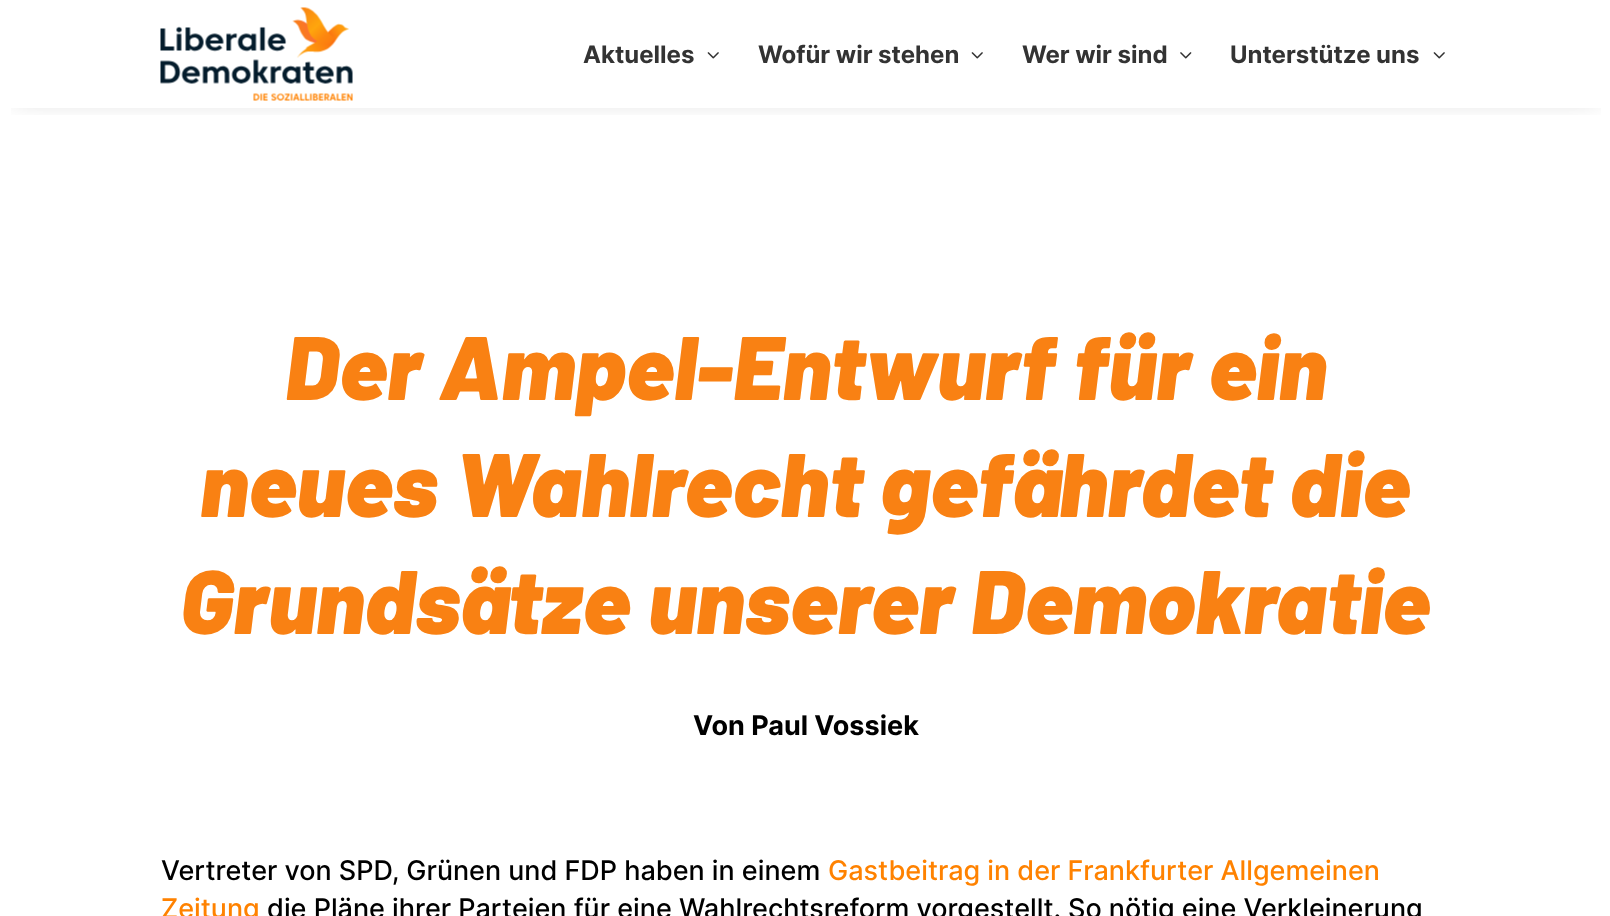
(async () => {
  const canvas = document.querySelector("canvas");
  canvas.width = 1610;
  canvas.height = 916;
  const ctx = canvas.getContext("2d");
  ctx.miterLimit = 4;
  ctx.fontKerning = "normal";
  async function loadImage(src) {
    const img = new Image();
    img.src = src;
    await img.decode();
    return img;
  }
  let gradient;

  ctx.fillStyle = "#ffffff";
  ctx.fillRect(0, 0, 1610, 916);
  ctx.save();
  ctx.beginPath();
  ctx.rect(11, 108, 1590, 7);
  ctx.clip();
  ctx.fillStyle = "rgba(0, 0, 0, 0.3)";
  ctx.filter = "blur(13.5px)";
  ctx.beginPath();
  ctx.rect(14, 14, 1584, 81);
  ctx.fill();
  ctx.filter = "none";
  ctx.restore();
  ctx.drawImage(await loadImage("img/1.png"), 160, 7, 193, 94);
  ctx.drawImage(await loadImage("img/2.png"), 707, 52, 12, 7);
  ctx.drawImage(await loadImage("img/2.png"), 971, 52, 12, 7);
  ctx.drawImage(await loadImage("img/3.png"), 1180, 52, 12, 7);
  ctx.drawImage(await loadImage("img/2.png"), 1433, 52, 12, 7);
  ctx.font = "bold 24px Inter";
  gradient = ctx.createLinearGradient(583, 54, 725, 54);
  gradient.addColorStop(0, "#f98113");
  gradient.addColorStop(0, "#333333");
  ctx.fillStyle = gradient;
  ctx.fillText("Aktuelles", 583, 63);
  gradient = ctx.createLinearGradient(758, 54, 989, 54);
  gradient.addColorStop(0, "#f98113");
  gradient.addColorStop(0, "#333333");
  ctx.fillStyle = gradient;
  ctx.fillText("Wofür wir stehen", 758, 63);
  gradient = ctx.createLinearGradient(1022, 54, 1197, 54);
  gradient.addColorStop(0, "#f98113");
  gradient.addColorStop(0, "#333333");
  ctx.fillStyle = gradient;
  ctx.fillText("Wer wir sind", 1022, 63);
  gradient = ctx.createLinearGradient(1230, 54, 1450, 54);
  gradient.addColorStop(0, "#f98113");
  gradient.addColorStop(0, "#333333");
  ctx.fillStyle = gradient;
  ctx.fillText("Unterstütze uns", 1230, 63);
  ctx.font = "italic 900 90px Barlow";
  ctx.fillStyle = "#f98113";
  for (const [text, x, y] of [
    ["Der Ampel-Entwurf für ein", 285, 400],
    ["neues Wahlrecht gefährdet die", 200, 517],
    ["Grundsätze unserer Demokratie", 180, 634],
  ]) {
    ctx.fillText(text, x, y);
  }
  ctx.font = "bold 27px Inter";
  ctx.fillStyle = "#000000";
  ctx.fillText("Von Paul Vossiek", 693, 735);
  ctx.font = "500 27px Inter";
  ctx.fillText("Vertreter von SPD, Grünen und FDP haben in einem", 161, 880);
  ctx.fillStyle = "#ff8200";
  ctx.fillText("Gastbeitrag in der Frankfurter Allgemeinen", 828, 880);
  ctx.fillText("Zeitung", 161, 918);
  ctx.fillStyle = "#000000";
  ctx.fillText("die Pläne ihrer Parteien für eine Wahlrechtsreform vorgestellt. So nötig eine Verkleinerung", 267, 918);
})();
